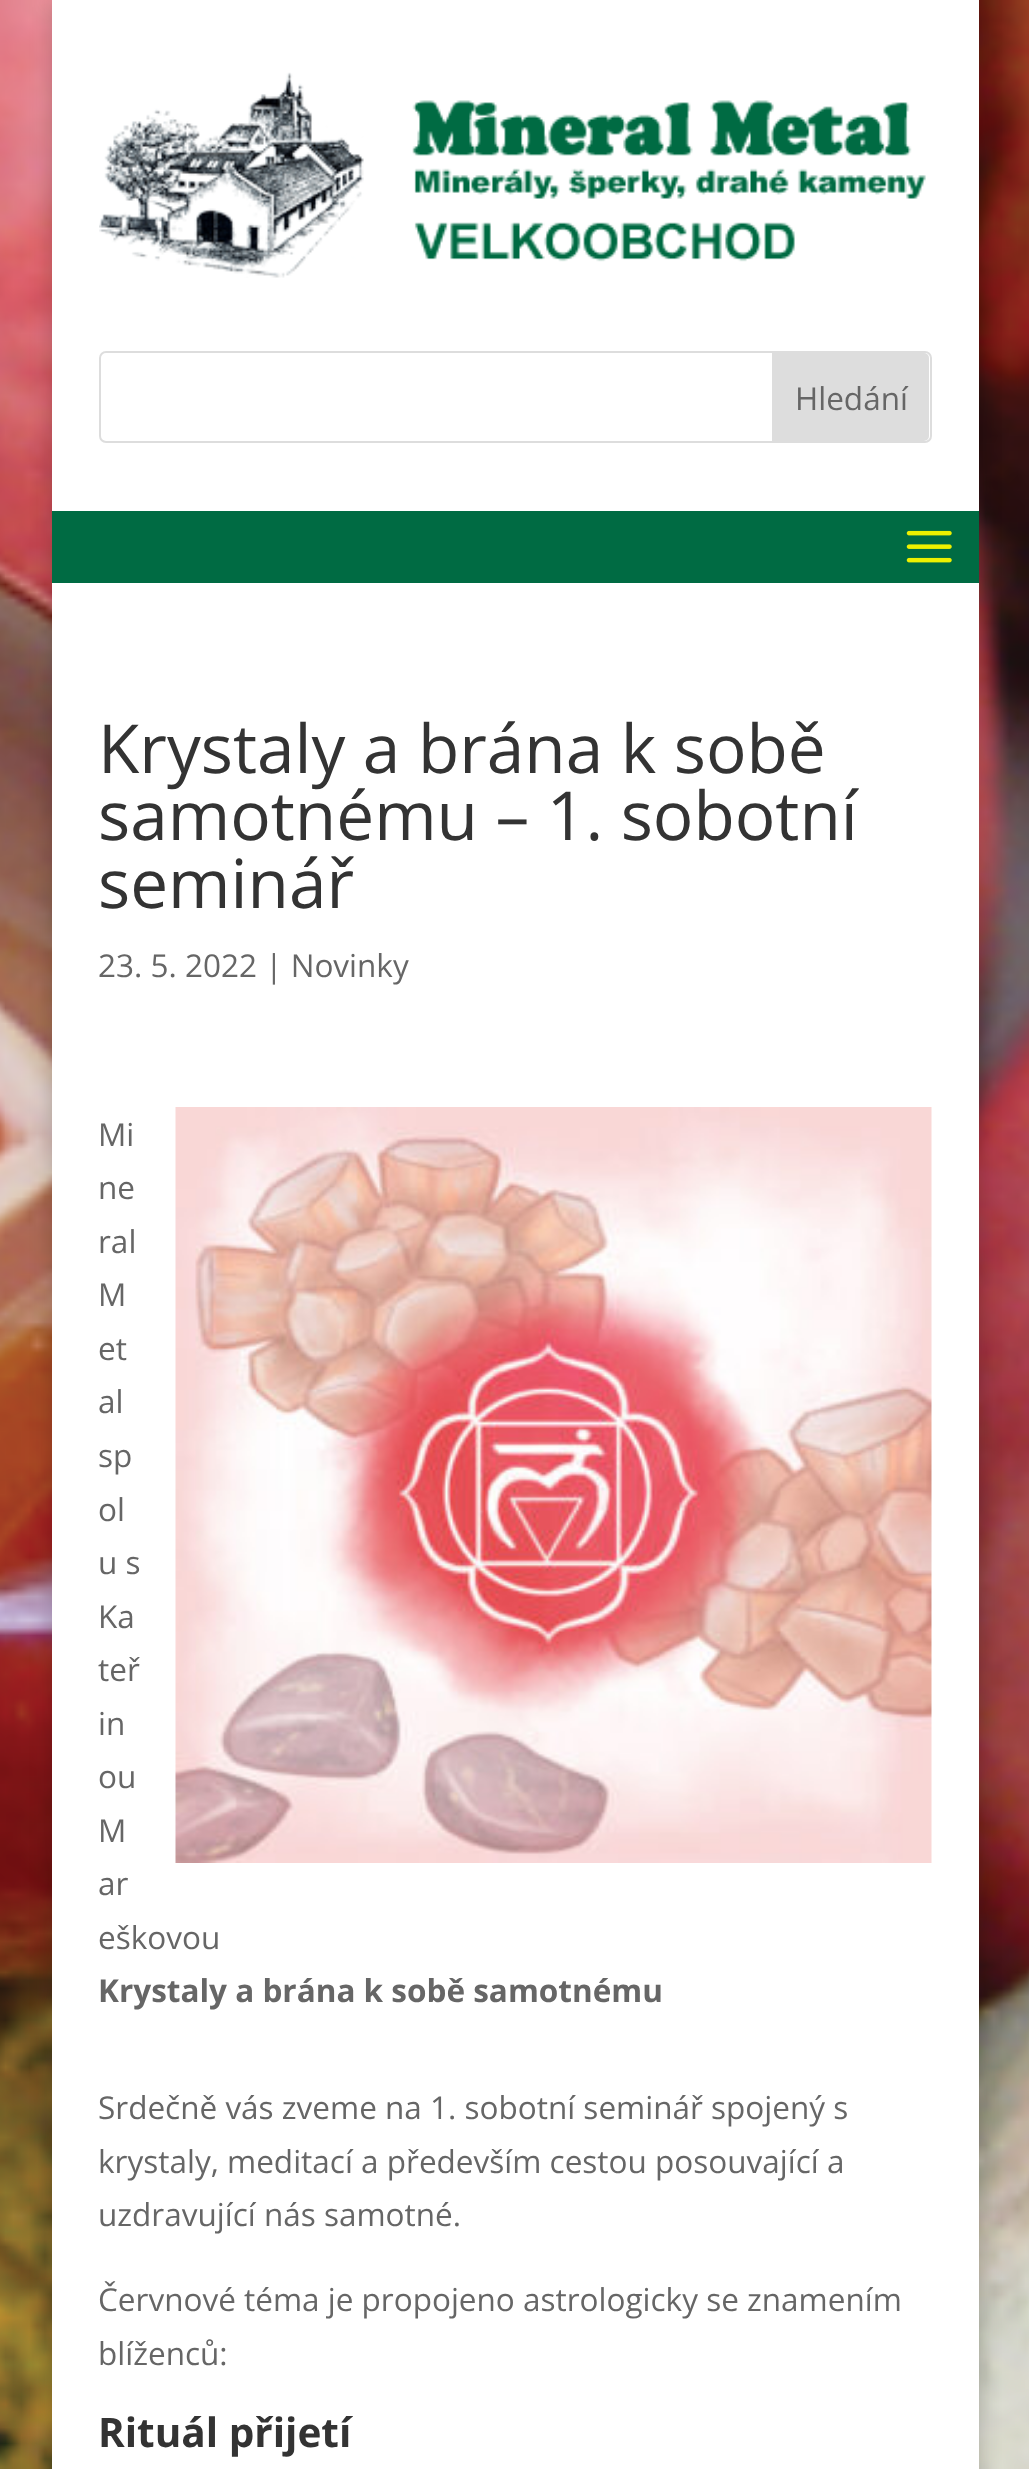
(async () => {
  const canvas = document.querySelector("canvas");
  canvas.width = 1029;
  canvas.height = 2469;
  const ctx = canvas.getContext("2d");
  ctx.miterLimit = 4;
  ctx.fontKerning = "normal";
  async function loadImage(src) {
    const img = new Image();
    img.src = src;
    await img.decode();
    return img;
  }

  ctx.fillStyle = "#ffffff";
  ctx.fillRect(0, 0, 1029, 2469);
  ctx.drawImage(await loadImage("img/1.png"), 0, 0, 1029, 2469);
  ctx.fillStyle = "rgba(0, 0, 0, 0.2)";
  ctx.filter = "blur(11px)";
  ctx.beginPath();
  ctx.rect(52, 0, 927, 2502);
  ctx.fill();
  ctx.filter = "none";
  ctx.fillStyle = "#ffffff";
  ctx.fillRect(52, 0, 927, 511);
  ctx.drawImage(await loadImage("img/2.png"), 99, 72, 827, 206);
  ctx.beginPath();
  ctx.roundRect(100, 352, 831, 90, 6);
  ctx.strokeStyle = "#dddddd";
  ctx.lineWidth = 2;
  ctx.stroke();
  ctx.fillStyle = "#dddddd";
  ctx.beginPath();
  ctx.roundRect(772, 353, 157, 88, [0, 5, 5, 0]);
  ctx.fill();
  ctx.fillStyle = "#006b43";
  ctx.fillRect(52, 511, 927, 72);
  ctx.drawImage(await loadImage("img/3.png"), 906, 530, 46, 33);
  ctx.fillStyle = "#ffffff";
  ctx.fillRect(52, 583, 927, 1886);
  ctx.drawImage(await loadImage("img/4.png"), 175, 1107, 757, 756);
  ctx.font = "31.5px Open Sans";
  ctx.fillStyle = "#666666";
  ctx.fillText("Hledání", 795, 410);
  ctx.font = "67.5px Open Sans";
  ctx.fillStyle = "#333333";
  for (const [text, x, y] of [
    ["Krystaly a brána k sobě", 98, 773],
    ["samotnému – 1. sobotní", 98, 840],
    ["seminář", 98, 908],
  ]) {
    ctx.fillText(text, x, y);
  }
  ctx.font = "31.5px Open Sans";
  ctx.fillStyle = "#666666";
  for (const [text, x, y] of [
    ["23. 5. 2022 | Novinky", 98, 977],
    ["Mi", 98, 1146],
    ["ne", 98, 1199],
    ["ral", 98, 1253],
    ["M", 98, 1306],
    ["et", 98, 1360],
    ["al", 98, 1413],
    ["sp", 98, 1467],
    ["ol", 98, 1521],
    ["u s", 98, 1574],
    ["Ka", 98, 1628],
    ["teř", 98, 1681],
    ["in", 98, 1735],
    ["ou", 98, 1788],
    ["M", 98, 1842],
    ["ar", 98, 1895],
    ["eškovou", 98, 1949],
  ]) {
    ctx.fillText(text, x, y);
  }
  ctx.font = "bold 31.5px Open Sans";
  ctx.fillText("Krystaly a brána k sobě samotnému", 98, 2002);
  ctx.font = "31.5px Open Sans";
  for (const [text, x, y] of [
    ["Srdečně vás zveme na 1. sobotní seminář spojený s", 98, 2119],
    ["krystaly, meditací a především cestou posouvající a", 98, 2173],
    ["uzdravující nás samotné.", 98, 2226],
    ["Červnové téma je propojeno astrologicky se znamením", 98, 2311],
    ["blíženců:", 98, 2365],
  ]) {
    ctx.fillText(text, x, y);
  }
  ctx.font = "bold 40.5px Open Sans";
  ctx.fillStyle = "#333333";
  ctx.fillText("Rituál přijetí", 98, 2447);
})();
